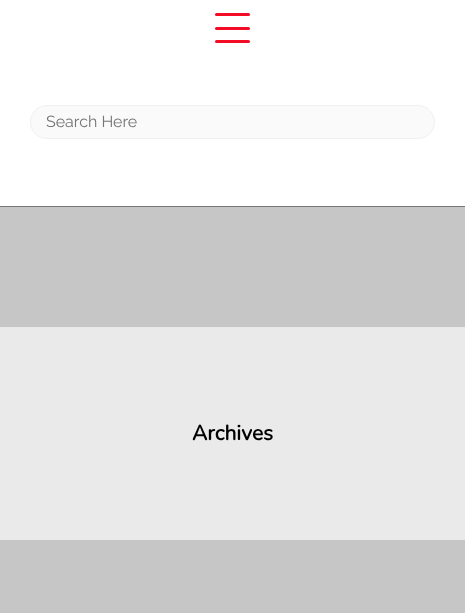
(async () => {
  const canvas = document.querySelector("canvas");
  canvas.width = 465;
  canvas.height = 613;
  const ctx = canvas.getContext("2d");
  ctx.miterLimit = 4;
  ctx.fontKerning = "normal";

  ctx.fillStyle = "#c6c6c6";
  ctx.fillRect(0, 0, 465, 613);
  ctx.fillStyle = "#ffffff";
  ctx.fillRect(0, 0, 465, 206);
  ctx.fillStyle = "#777777";
  ctx.fillRect(0, 206, 465, 1);
  ctx.fillStyle = "#f40c27";
  ctx.beginPath();
  ctx.roundRect(215, 13, 35, 3, 1.5);
  ctx.fill();
  ctx.beginPath();
  ctx.roundRect(215, 27, 35, 3, 1.5);
  ctx.fill();
  ctx.beginPath();
  ctx.roundRect(215, 40, 35, 3, 1.5);
  ctx.fill();
  ctx.fillStyle = "#fafafa";
  ctx.beginPath();
  ctx.roundRect(30.5, 105.5, 404, 33, 16.5);
  ctx.fill();
  ctx.strokeStyle = "#f0f0f0";
  ctx.stroke();
  ctx.fillStyle = "#eaeaea";
  ctx.fillRect(0, 327, 465, 213);
  ctx.font = "100 16px Raleway";
  ctx.fillStyle = "#757575";
  ctx.fillText("Search Here", 46, 127);
  ctx.font = "bold 21px Nunito";
  ctx.fillStyle = "#000000";
  ctx.fillText("Archives", 192, 440);
})();
